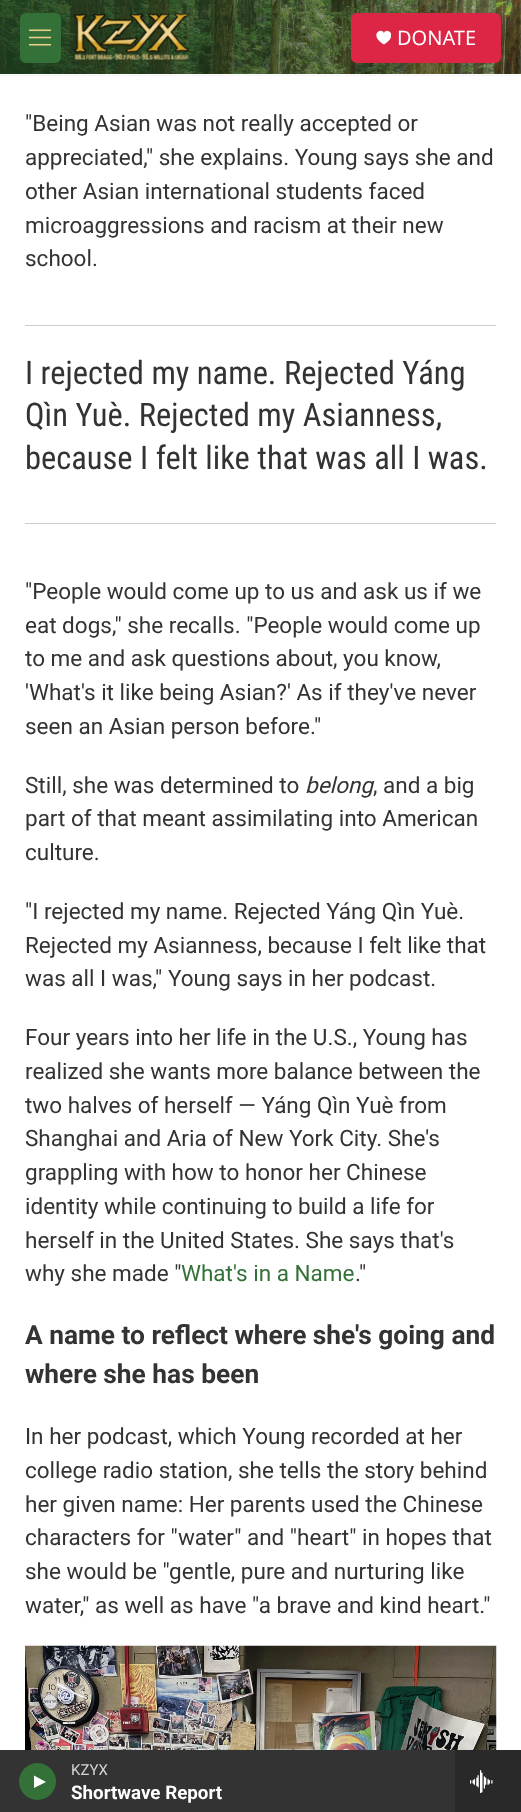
(async () => {
  const canvas = document.querySelector("canvas");
  canvas.width = 521;
  canvas.height = 1812;
  const ctx = canvas.getContext("2d");
  ctx.miterLimit = 4;
  ctx.fontKerning = "normal";
  async function loadImage(src) {
    const img = new Image();
    img.src = src;
    await img.decode();
    return img;
  }
  let path;

  ctx.fillStyle = "#ffffff";
  ctx.fillRect(0, 0, 521, 1812);
  ctx.fillStyle = "#f5f5f5";
  ctx.fillRect(0, 75, 521, 1);
  ctx.drawImage(await loadImage("img/1.png"), 0, 0, 521, 74);
  ctx.fillStyle = "#337138";
  ctx.beginPath();
  ctx.roundRect(20, 13, 41, 50, 6);
  ctx.fill();
  ctx.drawImage(await loadImage("img/2.png"), 29, 29, 22, 17);
  ctx.drawImage(await loadImage("img/3.png"), 73, 13, 116, 47);
  ctx.fillStyle = "#dd2646";
  ctx.beginPath();
  ctx.roundRect(351, 13, 150, 50, 6);
  ctx.fill();
  ctx.save();
  ctx.beginPath();
  ctx.rect(376, 30, 15, 15);
  ctx.clip();
  ctx.fillStyle = "#ffffff";
  path = new Path2D("M384 33C381.5 26.5 368 35 384 44.5C399.5 35 386 26.5 384 33Z");
  ctx.fill(path);
  ctx.restore();
  ctx.fillStyle = "#333333";
  ctx.fillRect(0, 1750, 455, 62);
  ctx.fillStyle = "#337138";
  ctx.beginPath();
  ctx.arc(37.5, 1781.5, 18.5, 0, Math.PI * 2);
  ctx.fill();
  ctx.fillStyle = "#ffffff";
  path = new Path2D("M34 1775.5L46 1782L34 1788Z");
  ctx.fill(path);
  ctx.fillStyle = "#292929";
  ctx.fillRect(455, 1750, 66, 62);
  ctx.drawImage(await loadImage("img/4.png"), 470, 1770, 23, 23);
  ctx.fillStyle = "#cccccc";
  ctx.fillRect(25, 325, 471, 1);
  ctx.fillRect(25, 523, 471, 1);
  ctx.drawImage(await loadImage("img/5.png"), 25, 1645, 472, 105);
  ctx.font = "20px Noto Sans";
  ctx.fillStyle = "#ffffff";
  ctx.fillText("DONATE", 397, 45);
  ctx.font = "15px Roboto";
  ctx.fillStyle = "#d6d6d6";
  ctx.fillText("KZYX", 71, 1775);
  ctx.font = "bold 18.75px Roboto";
  ctx.fillStyle = "#ffffff";
  ctx.fillText("Shortwave Report", 71, 1799);
  ctx.font = "22.5px Roboto";
  ctx.fillStyle = "#333333";
  for (const [text, x, y] of [
    ["\"Being Asian was not really accepted or", 25, 131],
    ["appreciated,\" she explains. Young says she and", 25, 165],
    ["other Asian international students faced", 25, 199],
    ["microaggressions and racism at their new", 25, 233],
    ["school.", 25, 266],
  ]) {
    ctx.fillText(text, x, y);
  }
  ctx.font = "32.5px Roboto Condensed";
  for (const [text, x, y] of [
    ["I rejected my name. Rejected Yáng", 25, 384],
    ["Qìn Yuè. Rejected my Asianness,", 25, 426],
    ["because I felt like that was all I was.", 25, 469],
  ]) {
    ctx.fillText(text, x, y);
  }
  ctx.font = "22.5px Roboto";
  for (const [text, x, y] of [
    ["\"People would come up to us and ask us if we", 25, 599],
    ["eat dogs,\" she recalls. \"People would come up", 25, 633],
    ["to me and ask questions about, you know,", 25, 666],
    ["'What's it like being Asian?' As if they've never", 25, 700],
    ["seen an Asian person before.\"", 25, 734],
    ["Still, she was determined to", 25, 793],
  ]) {
    ctx.fillText(text, x, y);
  }
  ctx.font = "italic 22.5px Roboto";
  ctx.fillText("belong", 305, 793);
  ctx.font = "22.5px Roboto";
  for (const [text, x, y] of [
    [", and a big", 373, 793],
    ["part of that meant assimilating into American", 25, 826],
    ["culture.", 25, 860],
    ["\"I rejected my name. Rejected Yáng Qìn Yuè.", 25, 919],
    ["Rejected my Asianness, because I felt like that", 25, 953],
    ["was all I was,\" Young says in her podcast.", 25, 986],
    ["Four years into her life in the U.S., Young has", 25, 1045],
    ["realized she wants more balance between the", 25, 1079],
    ["two halves of herself — Yáng Qìn Yuè from", 25, 1113],
    ["Shanghai and Aria of New York City. She's", 25, 1146],
    ["grappling with how to honor her Chinese", 25, 1180],
    ["identity while continuing to build a life for", 25, 1214],
    ["herself in the United States. She says that's", 25, 1248],
    ["why she made \"", 25, 1281],
  ]) {
    ctx.fillText(text, x, y);
  }
  ctx.fillStyle = "#337138";
  ctx.fillText("What's in a Name", 181, 1281);
  ctx.fillStyle = "#333333";
  ctx.fillText(".\"", 355, 1281);
  ctx.font = "bold 26.3px Roboto";
  ctx.fillText("A name to reflect where she's going and", 25, 1344);
  ctx.fillText("where she has been", 25, 1383);
  ctx.font = "22.5px Roboto";
  for (const [text, x, y] of [
    ["In her podcast, which Young recorded at her", 25, 1444],
    ["college radio station, she tells the story behind", 25, 1478],
    ["her given name: Her parents used the Chinese", 25, 1512],
    ["characters for \"water\" and \"heart\" in hopes that", 25, 1545],
    ["she would be \"gentle, pure and nurturing like", 25, 1579],
    ["water,\" as well as have \"a brave and kind heart.\"", 25, 1613],
  ]) {
    ctx.fillText(text, x, y);
  }
})();
